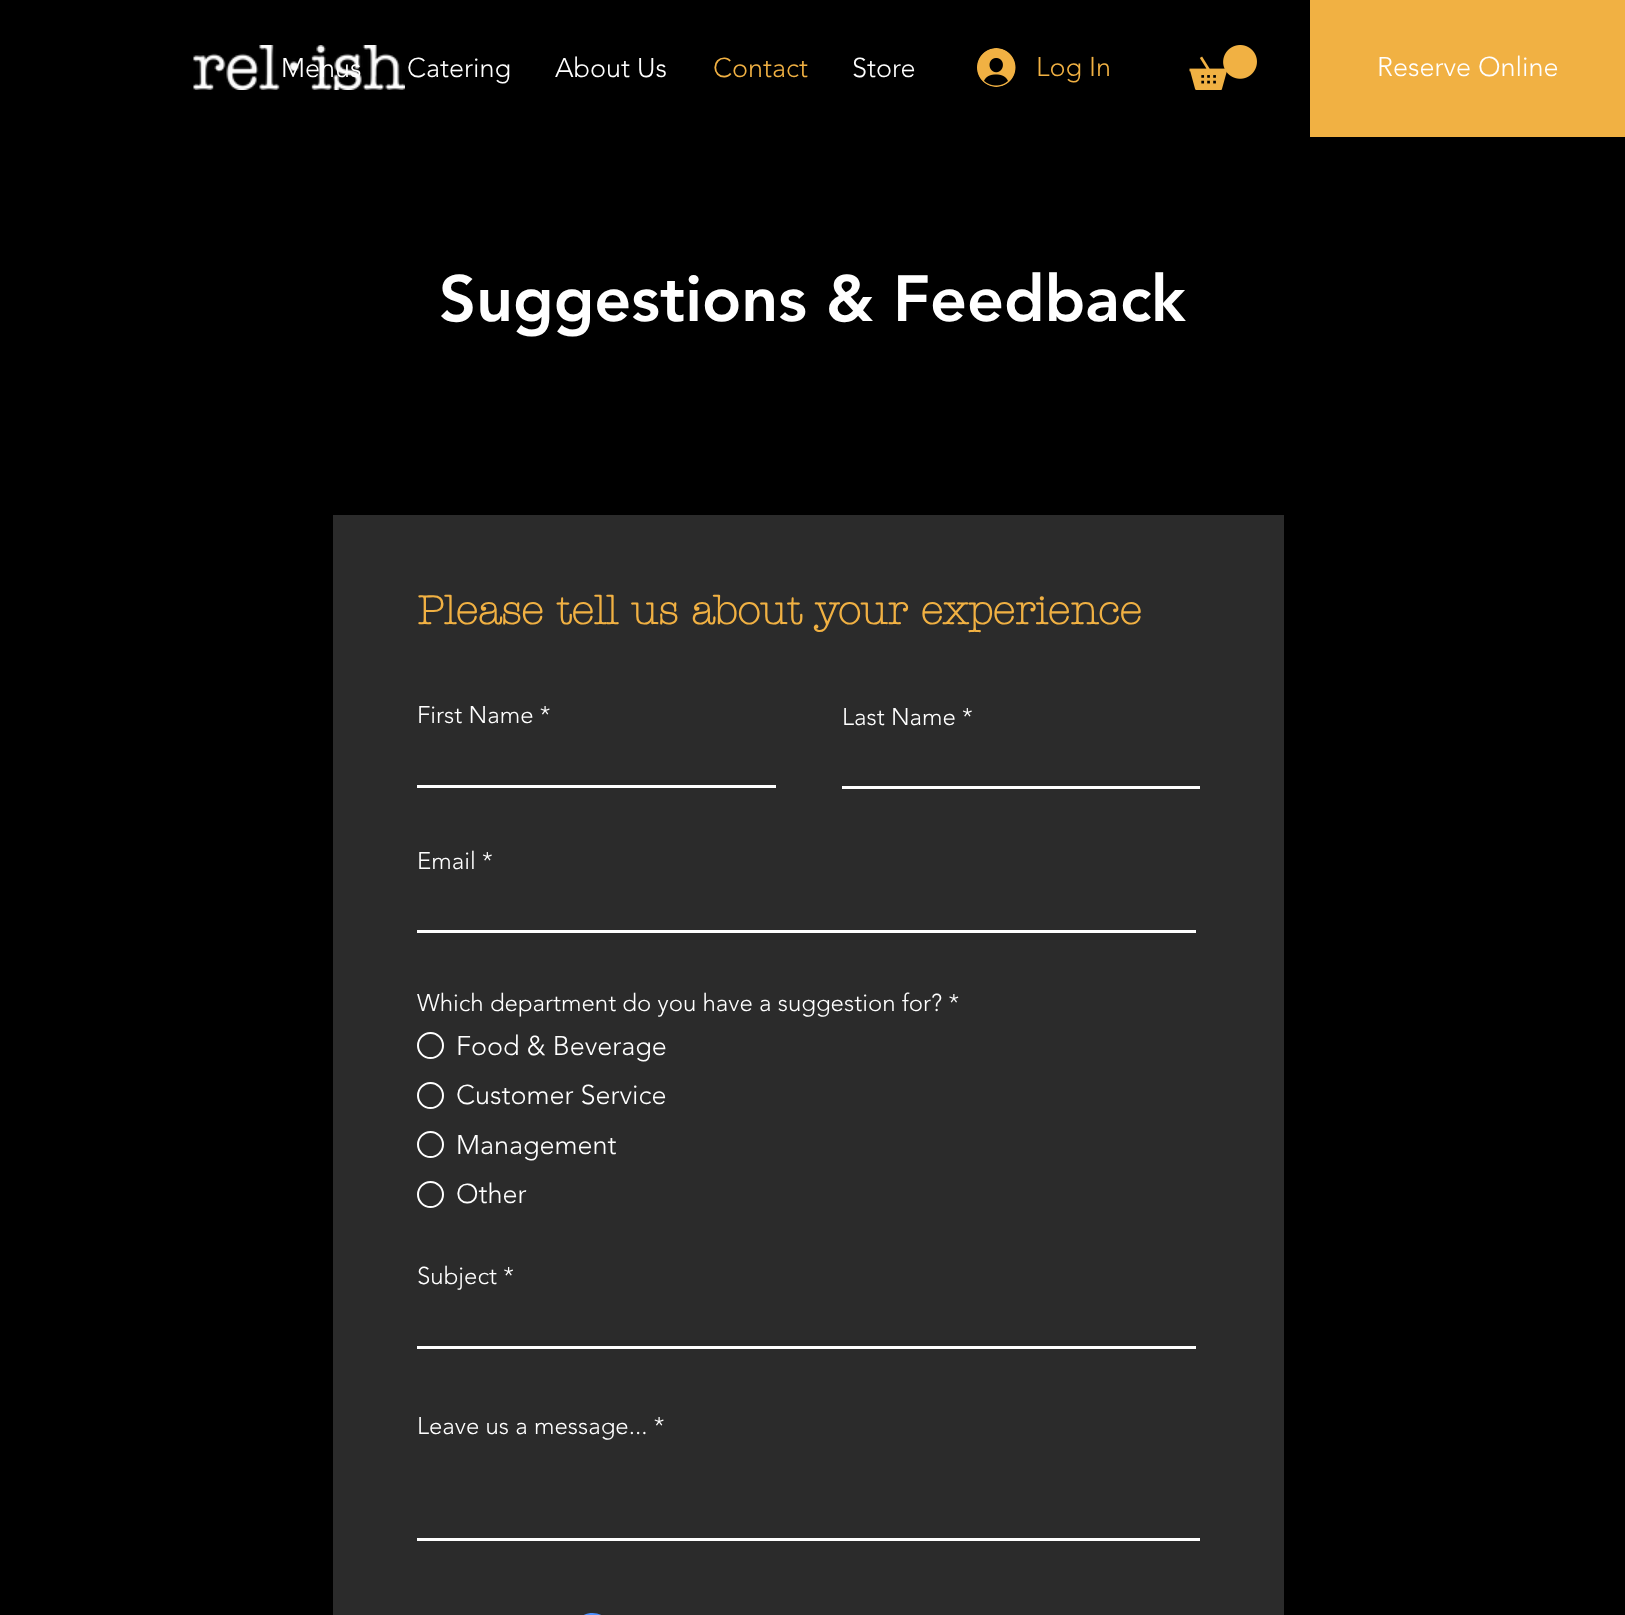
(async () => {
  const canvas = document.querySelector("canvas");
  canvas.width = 1625;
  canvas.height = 1615;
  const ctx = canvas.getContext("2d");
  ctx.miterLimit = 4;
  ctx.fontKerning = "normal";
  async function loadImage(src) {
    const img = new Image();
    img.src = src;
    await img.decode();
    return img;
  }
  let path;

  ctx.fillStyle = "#000000";
  ctx.fillRect(0, 0, 1625, 1615);
  ctx.drawImage(await loadImage("img/1.png"), 193, 45, 212, 45);
  ctx.drawImage(await loadImage("img/2.png"), 977, 48, 39, 39);
  ctx.drawImage(await loadImage("img/3.png"), 1189, 45, 68, 45);
  for (const [x, y, w, h, color] of [
    [1310, 0, 315, 137, "#f1b143"],
    [333, 515, 951, 1100, "#2b2b2b"],
    [417, 785, 359, 3, "#ffffff"],
    [842, 786, 358, 3, "#ffffff"],
    [417, 930, 779, 3, "#ffffff"],
  ]) {
    ctx.fillStyle = color;
    ctx.fillRect(x, y, w, h);
  }
  ctx.beginPath();
  ctx.arc(430.5, 1045.5, 12.5, 0, Math.PI * 2);
  ctx.strokeStyle = "#ffffff";
  ctx.lineWidth = 2;
  ctx.stroke();
  ctx.beginPath();
  ctx.arc(430.5, 1095.5, 12.5, 0, Math.PI * 2);
  ctx.stroke();
  ctx.beginPath();
  ctx.arc(430.5, 1144.5, 12.5, 0, Math.PI * 2);
  ctx.stroke();
  ctx.beginPath();
  ctx.arc(430.5, 1194.5, 12.5, 0, Math.PI * 2);
  ctx.stroke();
  ctx.fillRect(417, 1346, 779, 3);
  ctx.fillRect(417, 1538, 783, 3);
  path = new Path2D("M580.5 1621.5C592.5 1609.5 613 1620.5 609.5 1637C609 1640.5 607 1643.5 605 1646");
  ctx.strokeStyle = "#4d90fe";
  ctx.lineWidth = 6.9;
  ctx.stroke(path);
  ctx.font = "300 27px 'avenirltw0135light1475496'";
  for (const [text, x, y] of [
    ["Menus", 281, 77],
    ["Catering", 407, 77],
    ["About Us", 555, 77],
  ]) {
    ctx.fillText(text, x, y);
  }
  ctx.fillStyle = "#f1b143";
  ctx.fillText("Contact", 713, 77);
  ctx.fillStyle = "#ffffff";
  ctx.fillText("Store", 852, 77);
  ctx.fillStyle = "#f1b143";
  ctx.fillText("Log In", 1036, 76);
  ctx.fillStyle = "#ffffff";
  ctx.fillText("Reserve Online", 1377, 76);
  ctx.font = "900 64.5px 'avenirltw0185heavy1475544'";
  ctx.fillText("Suggestions & Feedback", 439, 321);
  ctx.font = "bold 40.5px 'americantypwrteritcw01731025'";
  ctx.fillStyle = "#f1b143";
  ctx.fillText("Please tell us about your experience", 417, 624);
  ctx.font = "300 24px 'avenirltw0135light1475496'";
  ctx.fillStyle = "#ffffff";
  for (const [text, x, y] of [
    ["First Name *", 417, 723],
    ["Last Name *", 842, 725],
    ["Email *", 417, 869],
    ["Which department do you have a suggestion for? *", 417, 1011],
  ]) {
    ctx.fillText(text, x, y);
  }
  ctx.font = "300 27px 'avenirltw0135light1475496'";
  for (const [text, x, y] of [
    ["Food & Beverage", 456, 1055],
    ["Customer Service", 456, 1104],
    ["Management", 456, 1154],
    ["Other", 456, 1203],
  ]) {
    ctx.fillText(text, x, y);
  }
  ctx.font = "300 24px 'avenirltw0135light1475496'";
  ctx.fillText("Subject *", 417, 1284);
  ctx.fillText("Leave us a message... *", 417, 1434);
})();
